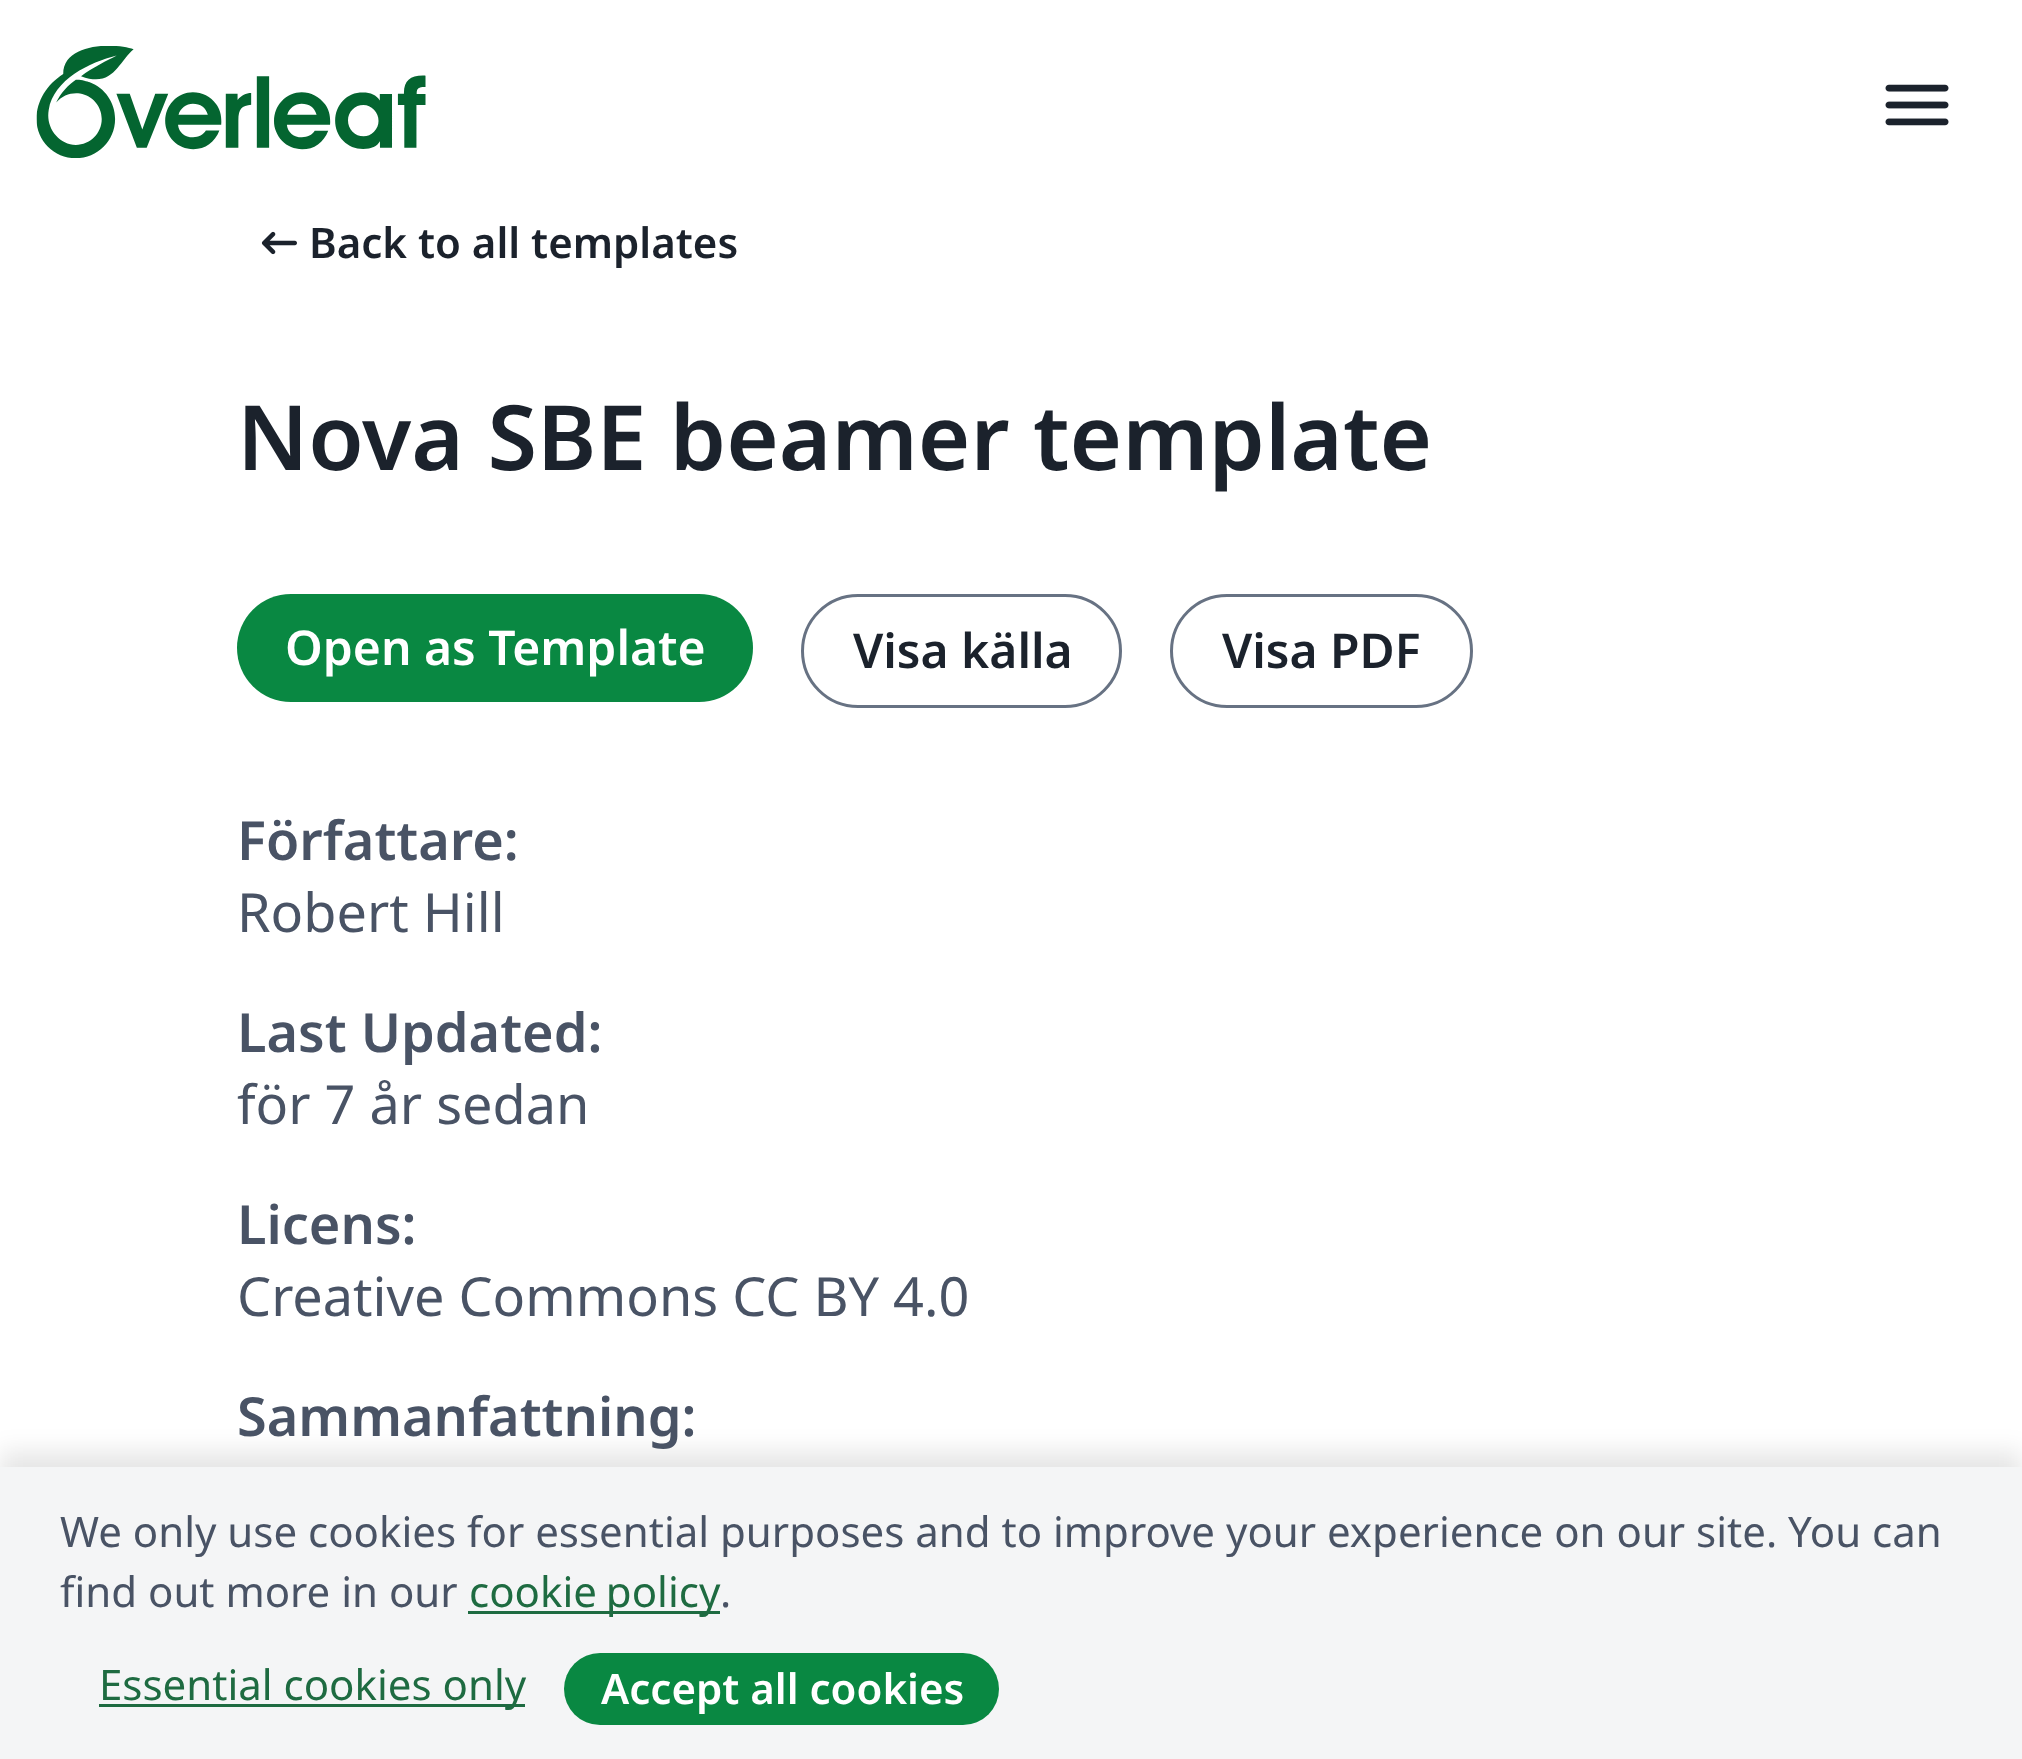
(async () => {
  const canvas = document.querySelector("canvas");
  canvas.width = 2022;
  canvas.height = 1759;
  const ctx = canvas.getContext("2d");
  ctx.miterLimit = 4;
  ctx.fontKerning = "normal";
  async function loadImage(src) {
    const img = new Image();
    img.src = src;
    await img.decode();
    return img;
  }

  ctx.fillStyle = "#ffffff";
  ctx.fillRect(0, 0, 2022, 1759);
  ctx.drawImage(await loadImage("img/1.png"), 36, 46, 390, 112);
  ctx.drawImage(await loadImage("img/2.png"), 1885, 84, 64, 42);
  ctx.drawImage(await loadImage("img/3.png"), 261, 231, 36, 24);
  ctx.fillStyle = "#098842";
  ctx.beginPath();
  ctx.roundRect(237, 594, 516, 108, 54);
  ctx.fill();
  ctx.beginPath();
  ctx.roundRect(802.5, 595.5, 318, 111, 55.5);
  ctx.strokeStyle = "#677283";
  ctx.lineWidth = 3;
  ctx.stroke();
  ctx.beginPath();
  ctx.roundRect(1171.5, 595.5, 300, 111, 55.5);
  ctx.stroke();
  ctx.fillStyle = "rgba(0, 0, 0, 0.1)";
  ctx.filter = "blur(12px)";
  ctx.beginPath();
  ctx.rect(0, 1452, 2022, 294);
  ctx.fill();
  ctx.filter = "none";
  for (const [x, y, w, h, color] of [
    [0, 1467, 2022, 292, "#f4f5f6"],
    [468, 1611, 252, 3, "#1e6b41"],
    [99, 1704, 426, 3, "#1e6b41"],
  ]) {
    ctx.fillStyle = color;
    ctx.fillRect(x, y, w, h);
  }
  ctx.fillStyle = "#098842";
  ctx.beginPath();
  ctx.roundRect(564, 1653, 435, 72, 36);
  ctx.fill();
  ctx.font = "600 42px Noto Sans";
  ctx.fillStyle = "#1b222c";
  ctx.fillText("Back to all templates", 309, 258);
  ctx.font = "600 90px Noto Sans";
  ctx.fillText("Nova SBE beamer template", 237, 470);
  ctx.font = "600 48px Noto Sans";
  ctx.fillStyle = "#ffffff";
  ctx.fillText("Open as Template", 285, 665);
  ctx.fillStyle = "#1b222c";
  ctx.fillText("Visa källa", 853, 668);
  ctx.fillText("Visa PDF", 1222, 668);
  ctx.font = "600 54px Noto Sans";
  ctx.fillStyle = "#495365";
  ctx.fillText("Författare:", 237, 860);
  ctx.font = "54px Noto Sans";
  ctx.fillText("Robert Hill", 237, 932);
  ctx.font = "600 54px Noto Sans";
  ctx.fillText("Last Updated:", 237, 1052);
  ctx.font = "54px Noto Sans";
  ctx.fillText("för 7 år sedan", 237, 1124);
  ctx.font = "600 54px Noto Sans";
  ctx.fillText("Licens:", 237, 1244);
  ctx.font = "54px Noto Sans";
  ctx.fillText("Creative Commons CC BY 4.0", 237, 1316);
  ctx.font = "600 54px Noto Sans";
  ctx.fillText("Sammanfattning:", 237, 1436);
  ctx.font = "42px Noto Sans";
  ctx.fillText("We only use cookies for essential purposes and to improve your experience on our site. You can", 60, 1547);
  ctx.fillText("find out more in our", 60, 1607);
  ctx.wordSpacing = "-2px";
  ctx.fillStyle = "#1e6b41";
  ctx.fillText("cookie policy", 469, 1607);
  ctx.wordSpacing = "0px";
  ctx.fillStyle = "#495365";
  ctx.fillText(".", 720, 1607);
  ctx.fillStyle = "#1e6b41";
  ctx.fillText("Essential cookies only", 99, 1700);
  ctx.font = "600 42px Noto Sans";
  ctx.fillStyle = "#ffffff";
  ctx.fillText("Accept all cookies", 601, 1704);
})();
